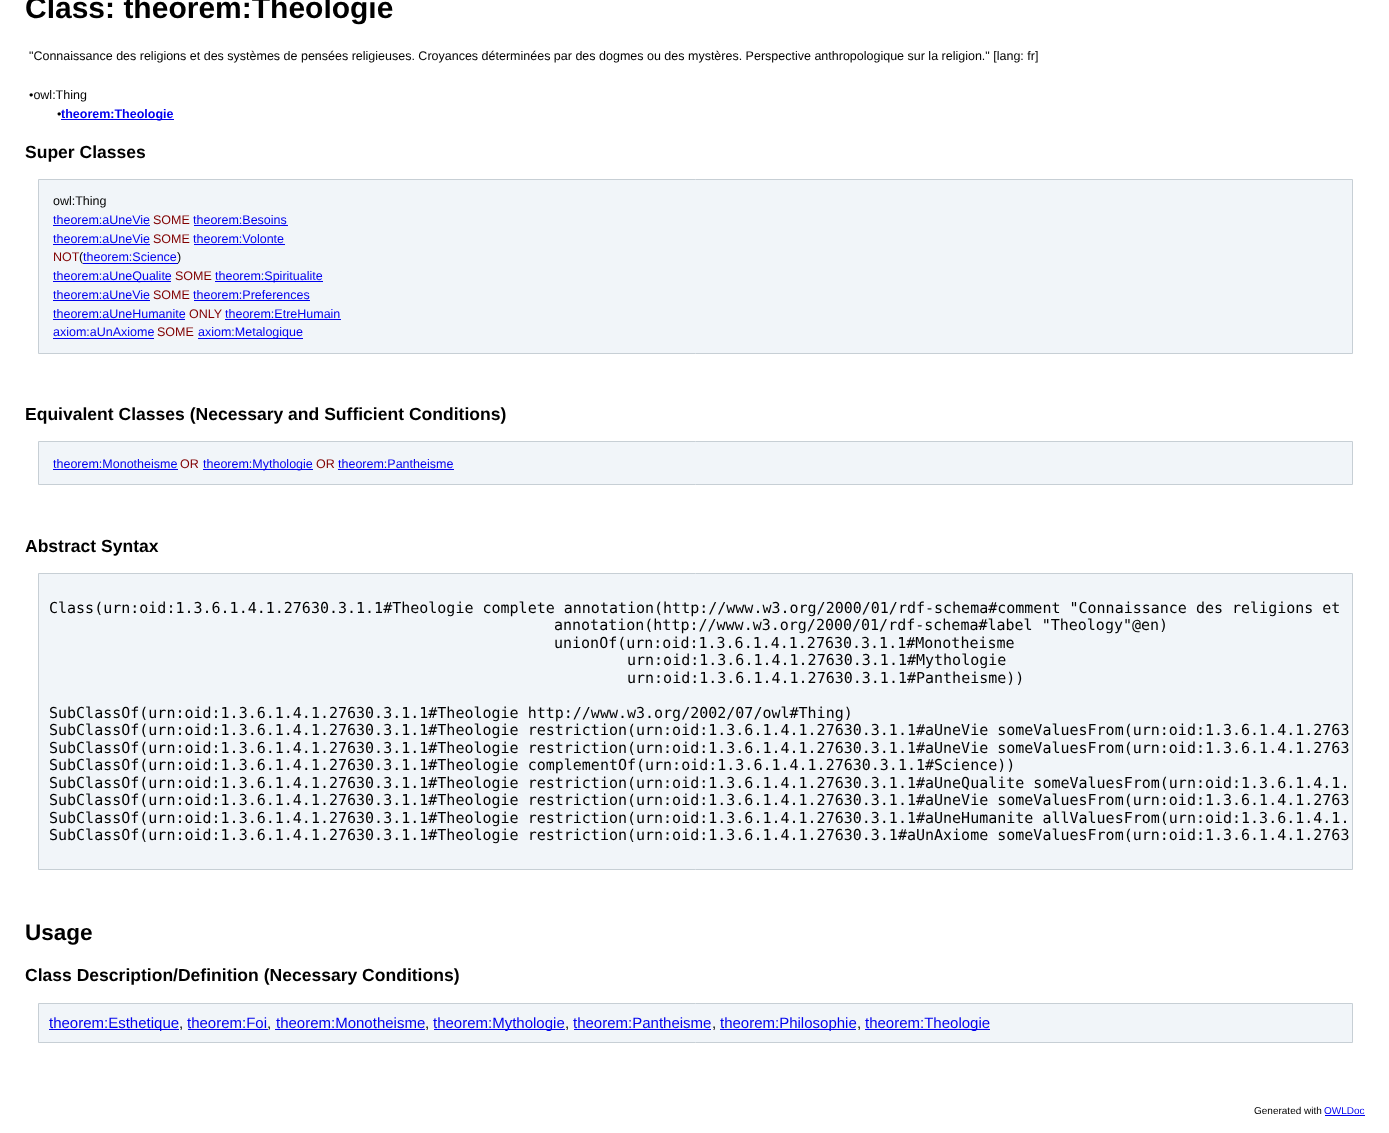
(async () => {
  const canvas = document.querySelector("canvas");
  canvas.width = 1389;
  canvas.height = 1133;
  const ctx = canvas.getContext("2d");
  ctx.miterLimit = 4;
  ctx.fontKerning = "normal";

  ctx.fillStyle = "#ffffff";
  ctx.fillRect(0, 0, 1389, 1133);
  ctx.fillStyle = "#0000ee";
  ctx.fillRect(61, 119, 113, 1);
  ctx.fillStyle = "#f1f5f9";
  ctx.beginPath();
  ctx.rect(38.5, 179.5, 1314, 174);
  ctx.fill();
  ctx.strokeStyle = "#c7cfd5";
  ctx.stroke();
  for (const [x, y, w, h, color] of [
    [53, 225, 97, 1, "#0000ee"],
    [194, 225, 94, 1, "#0000ee"],
    [53, 244, 97, 1, "#0000ee"],
    [194, 244, 91, 1, "#0000ee"],
    [83, 263, 95, 1, "#0000ee"],
    [53, 281, 118, 1, "#0000ee"],
    [215, 281, 108, 1, "#0000ee"],
    [53, 300, 97, 1, "#0000ee"],
    [194, 300, 116, 1, "#0000ee"],
    [53, 319, 132, 1, "#0000ee"],
    [225, 319, 116, 1, "#0000ee"],
    [53, 338, 101, 1, "#0000ee"],
    [198, 338, 105, 1, "#0000ee"],
  ]) {
    ctx.fillStyle = color;
    ctx.fillRect(x, y, w, h);
  }
  ctx.fillStyle = "#f1f5f9";
  ctx.beginPath();
  ctx.rect(38.5, 441.5, 1314, 43);
  ctx.fill();
  ctx.stroke();
  for (const [x, y, w, h, color] of [
    [53, 469, 125, 1, "#0000ee"],
    [203, 469, 110, 1, "#0000ee"],
    [338, 469, 116, 1, "#0000ee"],
  ]) {
    ctx.fillStyle = color;
    ctx.fillRect(x, y, w, h);
  }
  ctx.fillStyle = "#f1f5f9";
  ctx.beginPath();
  ctx.rect(38.5, 573.5, 1314, 296);
  ctx.fill();
  ctx.stroke();
  ctx.beginPath();
  ctx.rect(38.5, 1003.5, 1314, 39);
  ctx.fill();
  ctx.stroke();
  for (const [x, y, w, h, color] of [
    [49, 1029, 130, 1, "#0000ee"],
    [188, 1029, 80, 1, "#0000ee"],
    [275, 1029, 150, 1, "#0000ee"],
    [434, 1029, 131, 1, "#0000ee"],
    [574, 1029, 137, 1, "#0000ee"],
    [720, 1029, 136, 1, "#0000ee"],
    [865, 1029, 125, 1, "#0000ee"],
    [1325, 1115, 40, 1, "#0000ee"],
  ]) {
    ctx.fillStyle = color;
    ctx.fillRect(x, y, w, h);
  }
  ctx.font = "bold 30px Liberation Sans";
  ctx.fillStyle = "#000000";
  ctx.fillText("Class: theorem:Theologie", 25, 18);
  ctx.font = "12.5px Liberation Sans";
  for (const [text, x, y] of [
    ["\"Connaissance des religions et des systèmes de pensées religieuses. Croyances déterminées par des dogmes ou des mystères. Perspective anthropologique sur la religion.\" [lang: fr]", 29, 60],
    ["•owl:Thing", 29, 99],
    ["•", 57, 118],
  ]) {
    ctx.fillText(text, x, y);
  }
  ctx.font = "bold 12.5px Liberation Sans";
  ctx.fillStyle = "#0000ee";
  ctx.fillText("theorem:Theologie", 61, 118);
  ctx.font = "bold 17.55px Liberation Sans";
  ctx.fillStyle = "#000000";
  ctx.fillText("Super Classes", 25, 158);
  ctx.font = "12.5px Liberation Sans";
  ctx.fillText("owl:Thing", 53, 205);
  ctx.fillStyle = "#0000ee";
  ctx.fillText("theorem:aUneVie", 53, 224);
  ctx.fillStyle = "#800000";
  ctx.fillText("SOME", 153, 224);
  ctx.fillStyle = "#0000ee";
  ctx.fillText("theorem:Besoins", 193, 224);
  ctx.fillText("theorem:aUneVie", 53, 243);
  ctx.fillStyle = "#800000";
  ctx.fillText("SOME", 153, 243);
  ctx.fillStyle = "#0000ee";
  ctx.fillText("theorem:Volonte", 193, 243);
  ctx.fillStyle = "#800000";
  ctx.fillText("NOT", 53, 261);
  ctx.fillStyle = "#000000";
  ctx.fillText("(", 79, 261);
  ctx.fillStyle = "#0000ee";
  ctx.fillText("theorem:Science", 83, 261);
  ctx.fillStyle = "#000000";
  ctx.fillText(")", 177, 261);
  ctx.fillStyle = "#0000ee";
  ctx.fillText("theorem:aUneQualite", 53, 280);
  ctx.fillStyle = "#800000";
  ctx.fillText("SOME", 175, 280);
  ctx.fillStyle = "#0000ee";
  ctx.fillText("theorem:Spiritualite", 215, 280);
  ctx.fillText("theorem:aUneVie", 53, 299);
  ctx.fillStyle = "#800000";
  ctx.fillText("SOME", 153, 299);
  ctx.fillStyle = "#0000ee";
  ctx.fillText("theorem:Preferences", 193, 299);
  ctx.fillText("theorem:aUneHumanite", 53, 318);
  ctx.fillStyle = "#800000";
  ctx.fillText("ONLY", 189, 318);
  ctx.fillStyle = "#0000ee";
  ctx.fillText("theorem:EtreHumain", 225, 318);
  ctx.fillText("axiom:aUnAxiome", 53, 336);
  ctx.fillStyle = "#800000";
  ctx.fillText("SOME", 157, 336);
  ctx.fillStyle = "#0000ee";
  ctx.fillText("axiom:Metalogique", 198, 336);
  ctx.font = "bold 17.55px Liberation Sans";
  ctx.fillStyle = "#000000";
  ctx.fillText("Equivalent Classes (Necessary and Sufficient Conditions)", 25, 420);
  ctx.font = "12.5px Liberation Sans";
  ctx.fillStyle = "#0000ee";
  ctx.fillText("theorem:Monotheisme", 53, 468);
  ctx.fillStyle = "#800000";
  ctx.fillText("OR", 180, 468);
  ctx.fillStyle = "#0000ee";
  ctx.fillText("theorem:Mythologie", 203, 468);
  ctx.fillStyle = "#800000";
  ctx.fillText("OR", 316, 468);
  ctx.fillStyle = "#0000ee";
  ctx.fillText("theorem:Pantheisme", 338, 468);
  ctx.font = "bold 17.55px Liberation Sans";
  ctx.fillStyle = "#000000";
  ctx.fillText("Abstract Syntax", 25, 552);
  ctx.font = "15px DejaVu Sans Mono";
  for (const [text, x, y] of [
    ["Class(urn:oid:1.3.6.1.4.1.27630.3.1.1#Theologie complete annotation(http://www.w3.org/2000/01/rdf-schema#comment \"Connaissance des religions et", 49, 613],
    ["annotation(http://www.w3.org/2000/01/rdf-schema#label \"Theology\"@en)", 554, 630],
    ["unionOf(urn:oid:1.3.6.1.4.1.27630.3.1.1#Monotheisme", 554, 648],
    ["urn:oid:1.3.6.1.4.1.27630.3.1.1#Mythologie", 627, 665],
    ["urn:oid:1.3.6.1.4.1.27630.3.1.1#Pantheisme))", 627, 683],
    ["SubClassOf(urn:oid:1.3.6.1.4.1.27630.3.1.1#Theologie http://www.w3.org/2002/07/owl#Thing)", 49, 718],
    ["SubClassOf(urn:oid:1.3.6.1.4.1.27630.3.1.1#Theologie restriction(urn:oid:1.3.6.1.4.1.27630.3.1.1#aUneVie someValuesFrom(urn:oid:1.3.6.1.4.1.2763", 49, 735],
    ["SubClassOf(urn:oid:1.3.6.1.4.1.27630.3.1.1#Theologie restriction(urn:oid:1.3.6.1.4.1.27630.3.1.1#aUneVie someValuesFrom(urn:oid:1.3.6.1.4.1.2763", 49, 753],
    ["SubClassOf(urn:oid:1.3.6.1.4.1.27630.3.1.1#Theologie complementOf(urn:oid:1.3.6.1.4.1.27630.3.1.1#Science))", 49, 770],
    ["SubClassOf(urn:oid:1.3.6.1.4.1.27630.3.1.1#Theologie restriction(urn:oid:1.3.6.1.4.1.27630.3.1.1#aUneQualite someValuesFrom(urn:oid:1.3.6.1.4.1.", 49, 788],
    ["SubClassOf(urn:oid:1.3.6.1.4.1.27630.3.1.1#Theologie restriction(urn:oid:1.3.6.1.4.1.27630.3.1.1#aUneVie someValuesFrom(urn:oid:1.3.6.1.4.1.2763", 49, 805],
    ["SubClassOf(urn:oid:1.3.6.1.4.1.27630.3.1.1#Theologie restriction(urn:oid:1.3.6.1.4.1.27630.3.1.1#aUneHumanite allValuesFrom(urn:oid:1.3.6.1.4.1.", 49, 823],
    ["SubClassOf(urn:oid:1.3.6.1.4.1.27630.3.1.1#Theologie restriction(urn:oid:1.3.6.1.4.1.27630.3.1#aUnAxiome someValuesFrom(urn:oid:1.3.6.1.4.1.2763", 49, 840],
  ]) {
    ctx.fillText(text, x, y);
  }
  ctx.font = "bold 22.5px Liberation Sans";
  ctx.fillText("Usage", 25, 940);
  ctx.font = "bold 17.55px Liberation Sans";
  ctx.fillText("Class Description/Definition (Necessary Conditions)", 25, 981);
  ctx.font = "15px Liberation Sans";
  ctx.fillStyle = "#0000ee";
  ctx.fillText("theorem:Esthetique", 49, 1028);
  ctx.fillStyle = "#000000";
  ctx.fillText(",", 179, 1028);
  ctx.fillStyle = "#0000ee";
  ctx.fillText("theorem:Foi", 187, 1028);
  ctx.fillStyle = "#000000";
  ctx.fillText(",", 267, 1028);
  ctx.fillStyle = "#0000ee";
  ctx.fillText("theorem:Monotheisme", 276, 1028);
  ctx.fillStyle = "#000000";
  ctx.fillText(",", 425, 1028);
  ctx.fillStyle = "#0000ee";
  ctx.fillText("theorem:Mythologie", 433, 1028);
  ctx.fillStyle = "#000000";
  ctx.fillText(",", 565, 1028);
  ctx.fillStyle = "#0000ee";
  ctx.fillText("theorem:Pantheisme", 573, 1028);
  ctx.fillStyle = "#000000";
  ctx.fillText(",", 712, 1028);
  ctx.fillStyle = "#0000ee";
  ctx.fillText("theorem:Philosophie", 720, 1028);
  ctx.fillStyle = "#000000";
  ctx.fillText(",", 857, 1028);
  ctx.fillStyle = "#0000ee";
  ctx.fillText("theorem:Theologie", 865, 1028);
  ctx.font = "10px Liberation Sans";
  ctx.fillStyle = "#000000";
  ctx.fillText("Generated with", 1254, 1114);
  ctx.fillStyle = "#0000ee";
  ctx.fillText("OWLDoc", 1324, 1114);
})();
